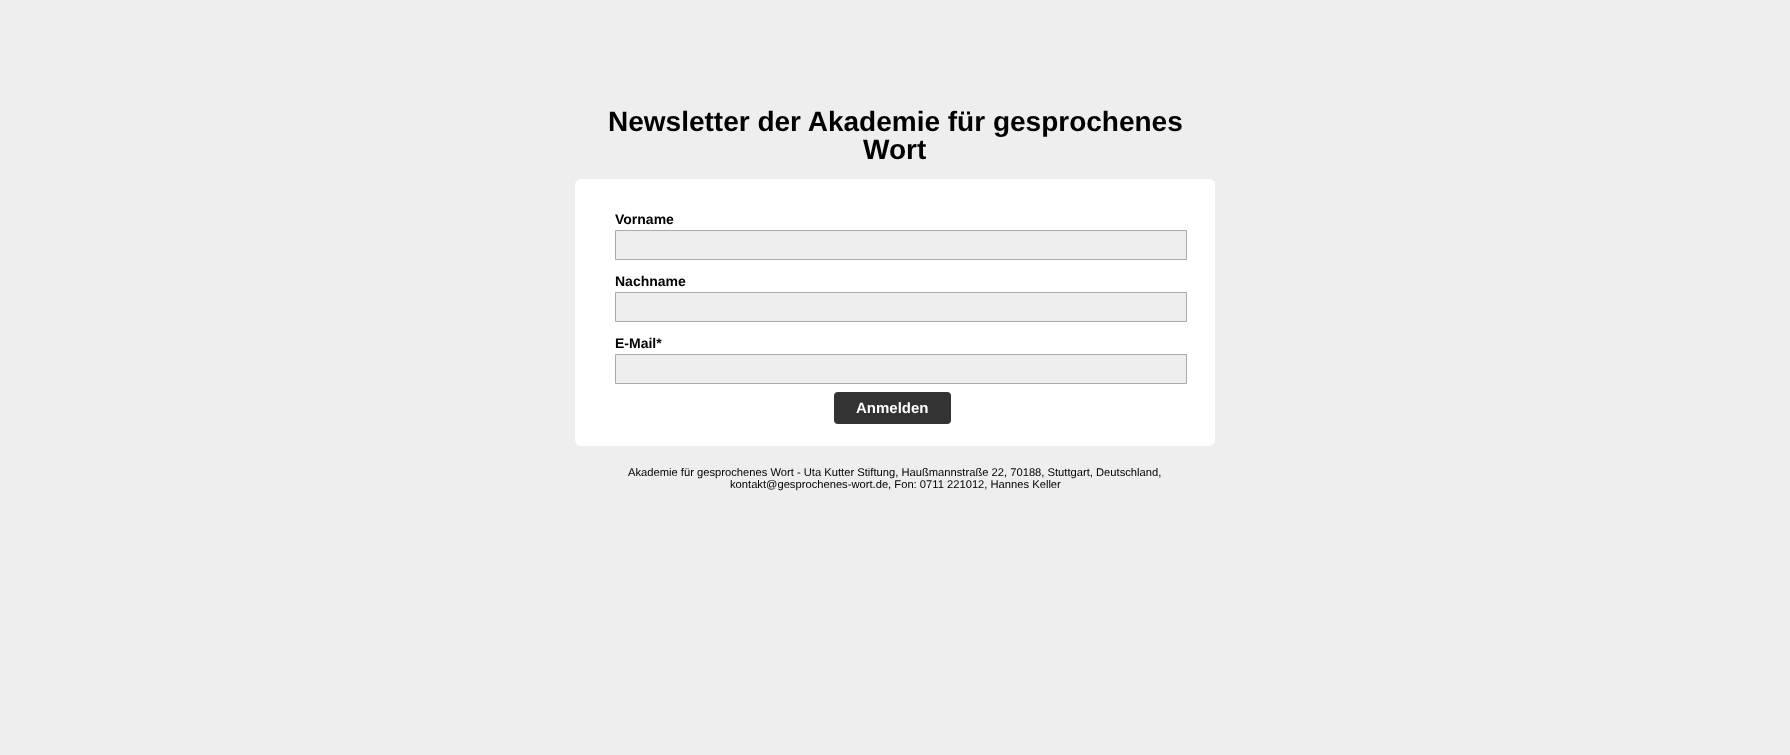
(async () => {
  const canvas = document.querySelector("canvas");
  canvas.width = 1790;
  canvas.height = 755;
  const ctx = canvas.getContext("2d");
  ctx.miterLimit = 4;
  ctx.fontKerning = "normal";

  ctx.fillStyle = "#eeeeee";
  ctx.fillRect(0, 0, 1790, 755);
  ctx.fillStyle = "#ffffff";
  ctx.beginPath();
  ctx.roundRect(575, 179, 640, 267, 6);
  ctx.fill();
  ctx.fillStyle = "#eeeeee";
  ctx.beginPath();
  ctx.rect(615.5, 230.5, 571, 29);
  ctx.fill();
  ctx.strokeStyle = "#aaaaaa";
  ctx.stroke();
  ctx.beginPath();
  ctx.rect(615.5, 292.5, 571, 29);
  ctx.fill();
  ctx.stroke();
  ctx.beginPath();
  ctx.rect(615.5, 354.5, 571, 29);
  ctx.fill();
  ctx.stroke();
  ctx.fillStyle = "#333333";
  ctx.beginPath();
  ctx.roundRect(834, 392, 117, 32, 4);
  ctx.fill();
  ctx.font = "bold 28px Liberation Sans";
  ctx.fillStyle = "#000000";
  ctx.fillText("Newsletter der Akademie für gesprochenes", 608, 131);
  ctx.fillText("Wort", 863, 159);
  ctx.font = "bold 14px Liberation Sans";
  for (const [text, x, y] of [
    ["Vorname", 615, 224],
    ["Nachname", 615, 286],
    ["E-Mail*", 615, 348],
  ]) {
    ctx.fillText(text, x, y);
  }
  ctx.font = "bold 15px Liberation Sans";
  ctx.fillStyle = "#ffffff";
  ctx.fillText("Anmelden", 856, 413);
  ctx.font = "11.2px Liberation Sans";
  ctx.fillStyle = "#000000";
  ctx.fillText("Akademie für gesprochenes Wort - Uta Kutter Stiftung, Haußmannstraße 22, 70188, Stuttgart, Deutschland,", 628, 476);
  ctx.fillText("kontakt@gesprochenes-wort.de, Fon: 0711 221012, Hannes Keller", 730, 488);
})();
